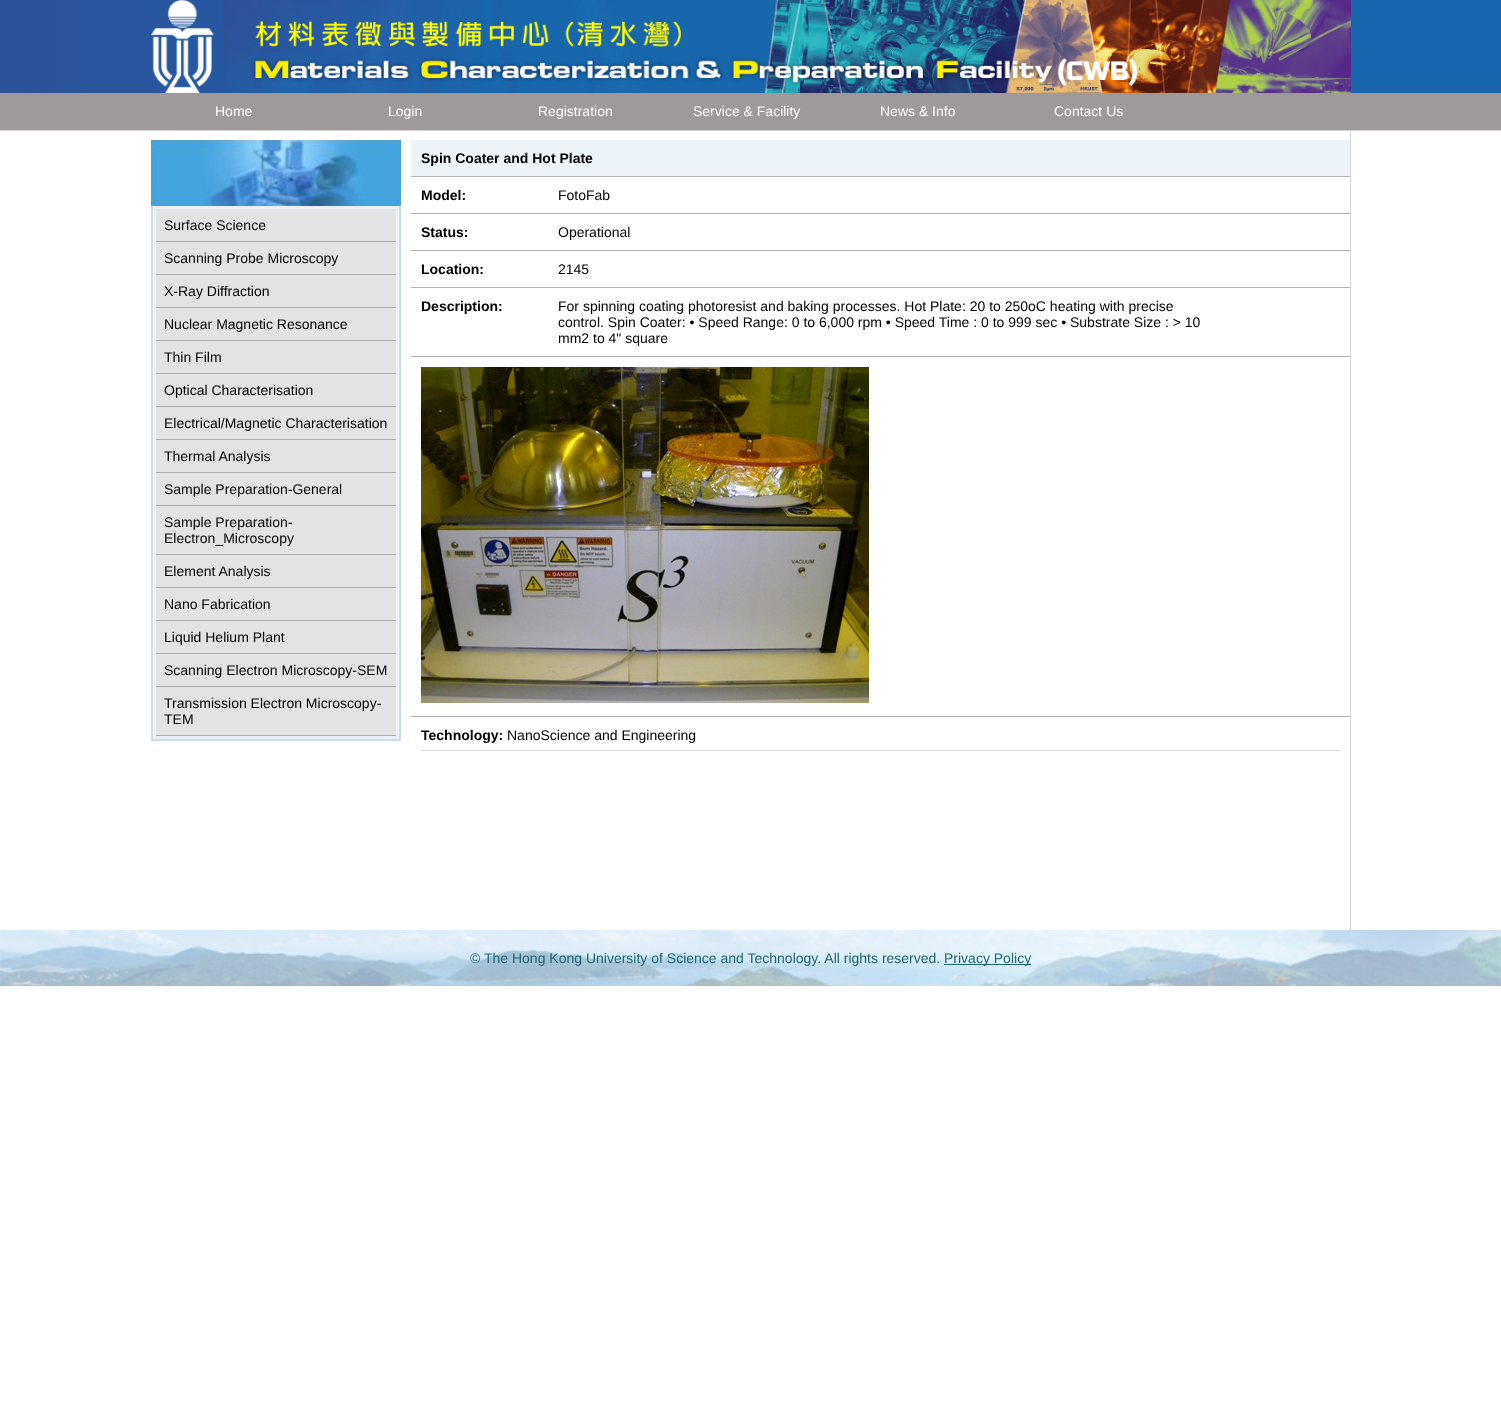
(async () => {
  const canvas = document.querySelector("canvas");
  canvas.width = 1501;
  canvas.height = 1424;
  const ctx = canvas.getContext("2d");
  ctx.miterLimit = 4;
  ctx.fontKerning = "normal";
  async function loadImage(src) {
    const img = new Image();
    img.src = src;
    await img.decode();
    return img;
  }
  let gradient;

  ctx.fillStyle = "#ffffff";
  ctx.fillRect(0, 0, 1501, 1424);
  gradient = ctx.createLinearGradient(0, 47, 1501, 46);
  gradient.addColorStop(0, "#2c529b");
  gradient.addColorStop(0.5, "#1866ad");
  ctx.fillStyle = gradient;
  ctx.fillRect(0, 0, 1501, 93);
  ctx.drawImage(await loadImage("img/1.png"), 151, 0, 1200, 93);
  ctx.fillStyle = "#9f999a";
  ctx.fillRect(0, 93, 1501, 37);
  ctx.fillStyle = "#d6d6d6";
  ctx.fillRect(0, 130, 1501, 1);
  ctx.drawImage(await loadImage("img/2.png"), 151, 140, 250, 66);
  for (const [x, y, w, h, color] of [
    [153, 206, 246, 533, "#eaf0f5"],
    [399, 206, 2, 535, "#cedee5"],
    [151, 739, 250, 2, "#cedee5"],
    [151, 206, 2, 535, "#cedee5"],
    [156, 209, 240, 32, "#e3e3e3"],
    [156, 241, 240, 1, "#adadad"],
    [156, 242, 240, 32, "#e3e3e3"],
    [156, 274, 240, 1, "#adadad"],
    [156, 275, 240, 32, "#e3e3e3"],
    [156, 307, 240, 1, "#adadad"],
    [156, 308, 240, 32, "#e3e3e3"],
    [156, 340, 240, 1, "#adadad"],
    [156, 341, 240, 32, "#e3e3e3"],
    [156, 373, 240, 1, "#adadad"],
    [156, 374, 240, 32, "#e3e3e3"],
    [156, 406, 240, 1, "#adadad"],
    [156, 407, 240, 32, "#e3e3e3"],
    [156, 439, 240, 1, "#adadad"],
    [156, 440, 240, 32, "#e3e3e3"],
    [156, 472, 240, 1, "#adadad"],
    [156, 473, 240, 32, "#e3e3e3"],
    [156, 505, 240, 1, "#adadad"],
    [156, 506, 240, 48, "#e3e3e3"],
    [156, 554, 240, 1, "#adadad"],
    [156, 555, 240, 32, "#e3e3e3"],
    [156, 587, 240, 1, "#adadad"],
    [156, 588, 240, 32, "#e3e3e3"],
    [156, 620, 240, 1, "#adadad"],
    [156, 621, 240, 32, "#e3e3e3"],
    [156, 653, 240, 1, "#adadad"],
    [156, 654, 240, 32, "#e3e3e3"],
    [156, 686, 240, 1, "#adadad"],
    [156, 687, 240, 48, "#e3e3e3"],
    [156, 735, 240, 1, "#adadad"],
    [1350, 130, 1, 800, "#d6d6d6"],
    [411, 140, 939, 36, "#ecf4fa"],
    [411, 176, 939, 1, "#acb1b5"],
    [411, 213, 939, 1, "#acb1b5"],
    [411, 250, 939, 1, "#acb1b5"],
    [411, 287, 939, 1, "#acb1b5"],
    [411, 356, 939, 1, "#acb1b5"],
  ]) {
    ctx.fillStyle = color;
    ctx.fillRect(x, y, w, h);
  }
  ctx.drawImage(await loadImage("img/3.png"), 421, 367, 448, 336);
  ctx.fillRect(411, 716, 939, 1);
  ctx.fillStyle = "#d6d6d6";
  ctx.fillRect(421, 750, 919, 1);
  ctx.drawImage(await loadImage("img/4.png"), 0, 930, 1501, 56);
  ctx.fillStyle = "#1e6773";
  ctx.fillRect(944, 964, 87, 1);
  ctx.font = "14px Liberation Sans";
  ctx.fillStyle = "#ffffff";
  for (const [text, x, y] of [
    ["Home", 215, 116],
    ["Login", 388, 116],
    ["Registration", 538, 116],
    ["Service & Facility", 693, 116],
    ["News & Info", 880, 116],
    ["Contact Us", 1054, 116],
  ]) {
    ctx.fillText(text, x, y);
  }
  ctx.fillStyle = "#000000";
  for (const [text, x, y] of [
    ["Surface Science", 164, 230],
    ["Scanning Probe Microscopy", 164, 263],
    ["X-Ray Diffraction", 164, 296],
    ["Nuclear Magnetic Resonance", 164, 329],
    ["Thin Film", 164, 362],
    ["Optical Characterisation", 164, 395],
    ["Electrical/Magnetic Characterisation", 164, 428],
    ["Thermal Analysis", 164, 461],
    ["Sample Preparation-General", 164, 494],
    ["Sample Preparation-", 164, 527],
    ["Electron_Microscopy", 164, 543],
    ["Element Analysis", 164, 576],
    ["Nano Fabrication", 164, 609],
    ["Liquid Helium Plant", 164, 642],
    ["Scanning Electron Microscopy-SEM", 164, 675],
    ["Transmission Electron Microscopy-", 164, 708],
    ["TEM", 164, 724],
  ]) {
    ctx.fillText(text, x, y);
  }
  ctx.font = "bold 14px Liberation Sans";
  ctx.fillText("Spin Coater and Hot Plate", 421, 163);
  ctx.fillText("Model:", 421, 200);
  ctx.font = "14px Liberation Sans";
  ctx.fillText("FotoFab", 558, 200);
  ctx.font = "bold 14px Liberation Sans";
  ctx.fillText("Status:", 421, 237);
  ctx.font = "14px Liberation Sans";
  ctx.fillText("Operational", 558, 237);
  ctx.font = "bold 14px Liberation Sans";
  ctx.fillText("Location:", 421, 274);
  ctx.font = "14px Liberation Sans";
  ctx.fillText("2145", 558, 274);
  ctx.font = "bold 14px Liberation Sans";
  ctx.fillText("Description:", 421, 311);
  ctx.font = "14px Liberation Sans";
  for (const [text, x, y] of [
    ["For spinning coating photoresist and baking processes. Hot Plate: 20 to 250oC heating with precise", 558, 311],
    ["control. Spin Coater: • Speed Range: 0 to 6,000 rpm • Speed Time : 0 to 999 sec • Substrate Size : > 10", 558, 327],
    ["mm2 to 4\" square", 558, 343],
  ]) {
    ctx.fillText(text, x, y);
  }
  ctx.font = "bold 14px Liberation Sans";
  ctx.fillText("Technology:", 421, 740);
  ctx.font = "14px Liberation Sans";
  ctx.fillText("NanoScience and Engineering", 507, 740);
  ctx.fillStyle = "#1e6773";
  ctx.fillText("© The Hong Kong University of Science and Technology. All rights reserved.", 470, 963);
  ctx.fillText("Privacy Policy", 944, 963);
})();
